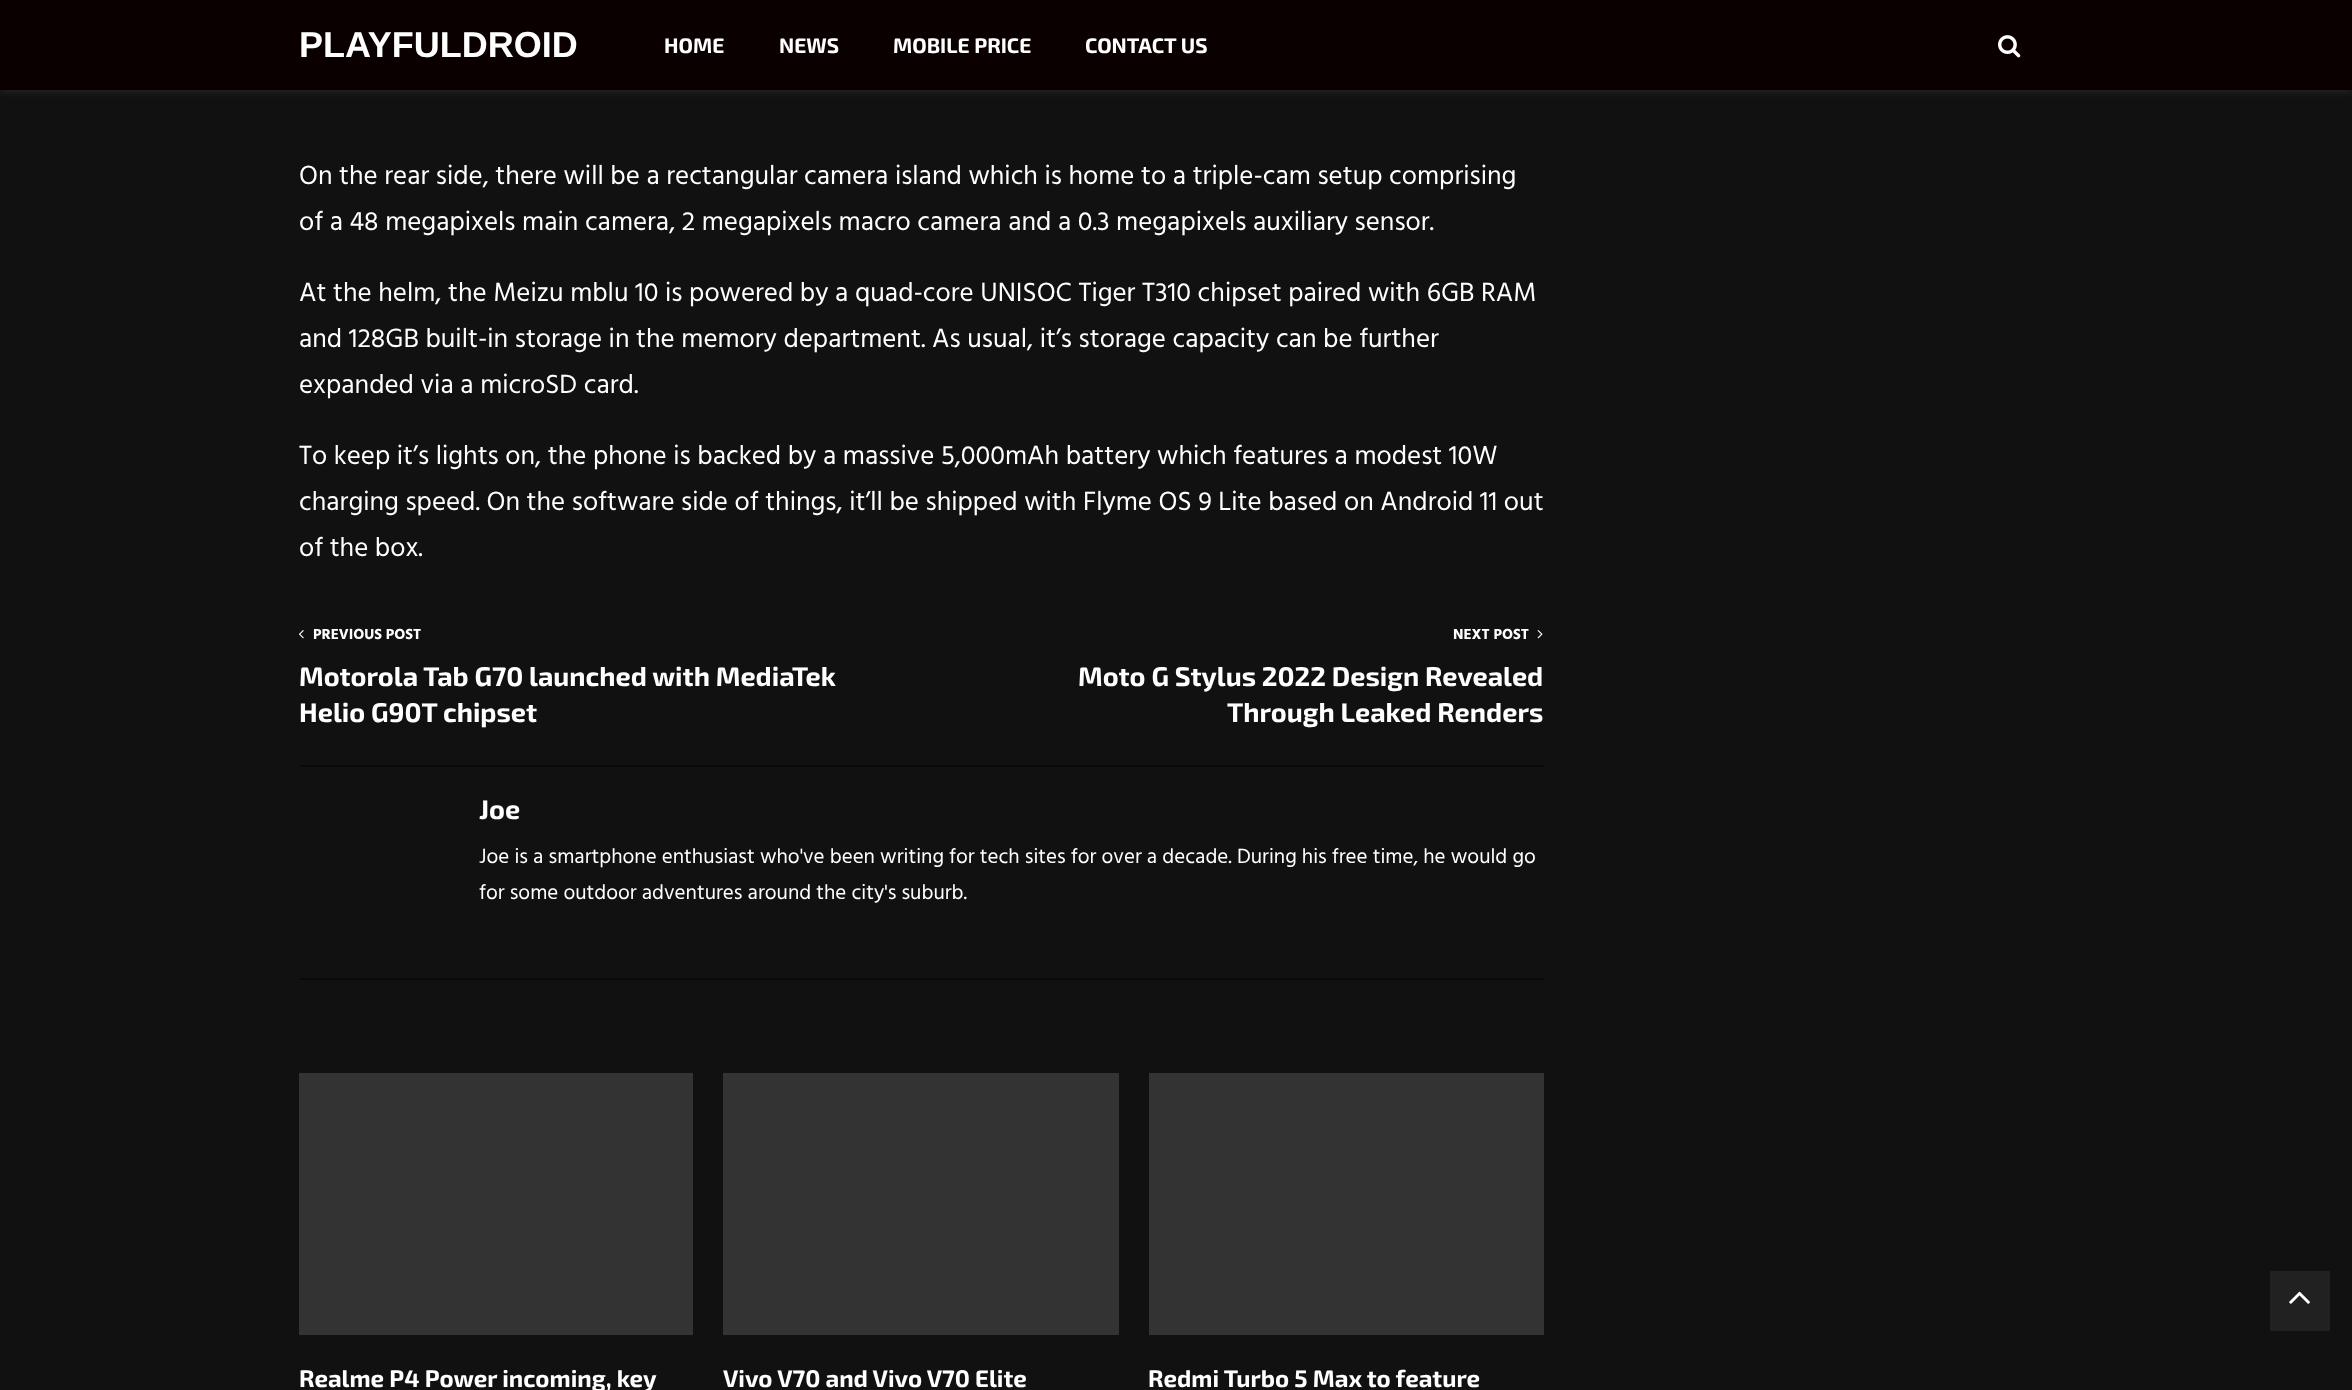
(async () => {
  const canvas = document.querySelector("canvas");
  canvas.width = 2352;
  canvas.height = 1390;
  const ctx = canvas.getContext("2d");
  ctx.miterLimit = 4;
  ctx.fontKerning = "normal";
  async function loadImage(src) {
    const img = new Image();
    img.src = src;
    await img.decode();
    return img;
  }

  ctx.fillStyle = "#111111";
  ctx.fillRect(0, 0, 2352, 1390);
  ctx.fillStyle = "rgba(255, 255, 255, 0.08)";
  ctx.filter = "blur(4px)";
  ctx.beginPath();
  ctx.rect(0, 2, 2352, 90);
  ctx.fill();
  ctx.filter = "none";
  ctx.fillStyle = "#0a0000";
  ctx.fillRect(0, 0, 2352, 90);
  ctx.drawImage(await loadImage("img/1.png"), 1998, 35, 23, 23);
  ctx.fillStyle = "#0a0a0a";
  ctx.fillRect(299, 765, 1245, 2);
  ctx.drawImage(await loadImage("img/2.png"), 299, 630, 5, 9);
  ctx.drawImage(await loadImage("img/3.png"), 1537, 630, 6, 9);
  for (const [x, y, w, h, color] of [
    [299, 978, 1245, 2, "#0a0a0a"],
    [299, 1073, 394, 262, "#333333"],
    [723, 1073, 396, 262, "#333333"],
    [1149, 1073, 395, 262, "#333333"],
    [2270, 1271, 60, 60, "#212121"],
  ]) {
    ctx.fillStyle = color;
    ctx.fillRect(x, y, w, h);
  }
  ctx.drawImage(await loadImage("img/4.png"), 2289, 1291, 21, 13);
  ctx.font = "bold 36px Liberation Sans";
  ctx.fillStyle = "#ffffff";
  ctx.fillText("PLAYFULDROID", 299, 57);
  ctx.font = "bold 21px 'Exo 2'";
  for (const [text, x, y] of [
    ["HOME", 664, 53],
    ["NEWS", 779, 53],
    ["MOBILE PRICE", 893, 53],
    ["CONTACT US", 1085, 53],
  ]) {
    ctx.fillText(text, x, y);
  }
  ctx.font = "27px Hind";
  for (const [text, x, y] of [
    ["On the rear side, there will be a rectangular camera island which is home to a triple-cam setup comprising", 299, 184],
    ["of a 48 megapixels main camera, 2 megapixels macro camera and a 0.3 megapixels auxiliary sensor.", 299, 230],
    ["At the helm, the Meizu mblu 10 is powered by a quad-core UNISOC Tiger T310 chipset paired with 6GB RAM", 299, 301],
    ["and 128GB built-in storage in the memory department. As usual, it’s storage capacity can be further", 299, 347],
    ["expanded via a microSD card.", 299, 393],
    ["To keep it’s lights on, the phone is backed by a massive 5,000mAh battery which features a modest 10W", 299, 464],
    ["charging speed. On the software side of things, it’ll be shipped with Flyme OS 9 Lite based on Android 11 out", 299, 510],
    ["of the box.", 299, 556],
  ]) {
    ctx.fillText(text, x, y);
  }
  ctx.font = "bold 15px Hind";
  ctx.fillText("PREVIOUS POST", 313, 639);
  ctx.font = "bold 27px 'Exo 2'";
  ctx.fillText("Motorola Tab G70 launched with MediaTek", 299, 686);
  ctx.fillText("Helio G90T chipset", 299, 722);
  ctx.font = "bold 15px Hind";
  ctx.fillText("NEXT POST", 1453, 639);
  ctx.font = "bold 27px 'Exo 2'";
  for (const [text, x, y] of [
    ["Moto G Stylus 2022 Design Revealed", 1078, 686],
    ["Through Leaked Renders", 1227, 722],
    ["Joe", 479, 819],
  ]) {
    ctx.fillText(text, x, y);
  }
  ctx.font = "21px Hind";
  ctx.fillText("Joe is a smartphone enthusiast who've been writing for tech sites for over a decade. During his free time, he would go", 479, 863);
  ctx.fillText("for some outdoor adventures around the city's suburb.", 479, 899);
  ctx.font = "bold 24px 'Exo 2'";
  for (const [text, x, y] of [
    ["Realme P4 Power incoming, key", 299, 1387],
    ["Vivo V70 and Vivo V70 Elite", 723, 1387],
    ["Redmi Turbo 5 Max to feature", 1148, 1387],
  ]) {
    ctx.fillText(text, x, y);
  }
})();
